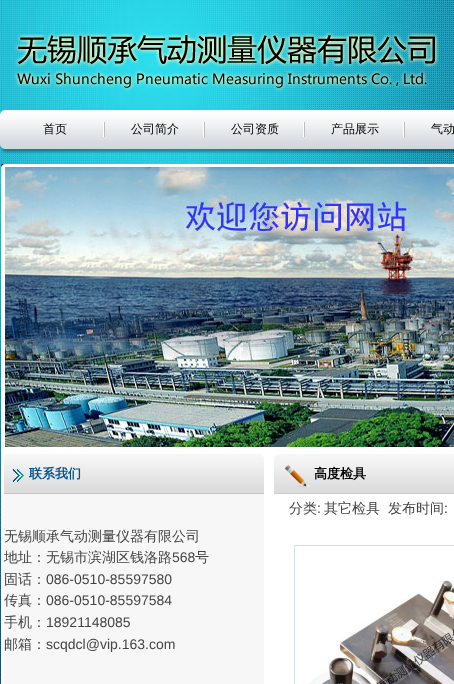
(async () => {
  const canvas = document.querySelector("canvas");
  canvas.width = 454;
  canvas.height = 684;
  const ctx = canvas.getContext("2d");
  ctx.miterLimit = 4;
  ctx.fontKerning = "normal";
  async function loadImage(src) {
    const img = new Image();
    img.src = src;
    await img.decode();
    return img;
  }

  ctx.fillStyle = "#ffffff";
  ctx.fillRect(0, 0, 454, 684);
  ctx.drawImage(await loadImage("img/1.png"), 0, 0, 454, 684);
  ctx.drawImage(await loadImage("img/2.png"), 14, 31, 425, 61);
  ctx.drawImage(await loadImage("img/3.png"), 0, 110, 454, 44);
  ctx.drawImage(await loadImage("img/4.png"), 103, 122, 2, 15);
  ctx.drawImage(await loadImage("img/4.png"), 203, 122, 2, 15);
  ctx.drawImage(await loadImage("img/4.png"), 303, 122, 2, 15);
  ctx.drawImage(await loadImage("img/4.png"), 403, 122, 2, 15);
  ctx.fillRect(1, 164, 453, 520);
  ctx.drawImage(await loadImage("img/5.png"), 1, 164, 4, 4);
  ctx.drawImage(await loadImage("img/6.png"), 5, 167, 449, 280);
  ctx.drawImage(await loadImage("img/7.png"), 4, 454, 260, 40);
  ctx.fillStyle = "#f7f7f7";
  ctx.fillRect(4, 494, 260, 190);
  ctx.drawImage(await loadImage("img/8.png"), 274, 454, 180, 40);
  ctx.strokeStyle = "#d5e1e2";
  ctx.strokeRect(294.5, 545.5, 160, 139);
  ctx.drawImage(await loadImage("img/9.png"), 308, 580, 146, 104);
  ctx.font = "500 12px WenQuanYi Zen Hei";
  ctx.fillStyle = "#000000";
  for (const [text, x, y] of [
    ["首页", 43, 133],
    ["公司简介", 131, 133],
    ["公司资质", 231, 133],
    ["产品展示", 331, 133],
    ["气动", 431, 133],
  ]) {
    ctx.fillText(text, x, y);
  }
  ctx.font = "bold 13px WenQuanYi Zen Hei";
  ctx.fillStyle = "#03538e";
  ctx.fillText("联系我们", 29, 478);
  ctx.font = "500 14px WenQuanYi Zen Hei";
  ctx.fillStyle = "#444444";
  ctx.fillText("无锡顺承气动测量仪器有限公司", 4, 541);
  ctx.save();
  ctx.beginPath();
  ctx.rect(4, 494, 260, 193);
  ctx.clip();
  ctx.fillText("地址：", 4, 562);
  ctx.restore();
  ctx.fillText("无锡市滨湖区钱洛路", 46, 562);
  ctx.font = "14px Liberation Sans";
  ctx.fillText("568", 172, 562);
  ctx.font = "500 14px WenQuanYi Zen Hei";
  ctx.fillText("号", 195, 562);
  ctx.fillText("固话：", 4, 584);
  ctx.font = "14px Liberation Sans";
  ctx.fillText("086-0510-85597580", 46, 584);
  ctx.font = "500 14px WenQuanYi Zen Hei";
  ctx.fillText("传真：", 4, 605);
  ctx.font = "14px Liberation Sans";
  ctx.fillText("086-0510-85597584", 46, 605);
  ctx.font = "500 14px WenQuanYi Zen Hei";
  ctx.fillText("手机：", 4, 627);
  ctx.font = "14px Liberation Sans";
  ctx.fillText("18921148085", 46, 627);
  ctx.font = "500 14px WenQuanYi Zen Hei";
  ctx.fillText("邮箱：", 4, 649);
  ctx.font = "14px Liberation Sans";
  ctx.fillText("scqdcl@vip.163.com", 46, 649);
  ctx.font = "bold 13px WenQuanYi Zen Hei";
  ctx.fillStyle = "#000000";
  ctx.fillText("高度检具", 314, 478);
  ctx.font = "500 14px WenQuanYi Zen Hei";
  ctx.fillStyle = "#444444";
  ctx.fillText("分类", 289, 513);
  ctx.font = "14px Liberation Sans";
  ctx.fillText(":", 317, 513);
  ctx.font = "500 14px WenQuanYi Zen Hei";
  ctx.fillText("其它检具", 324, 513);
  ctx.fillText("发布时间", 388, 513);
  ctx.font = "14px Liberation Sans";
  ctx.fillText(":", 444, 513);
})();
